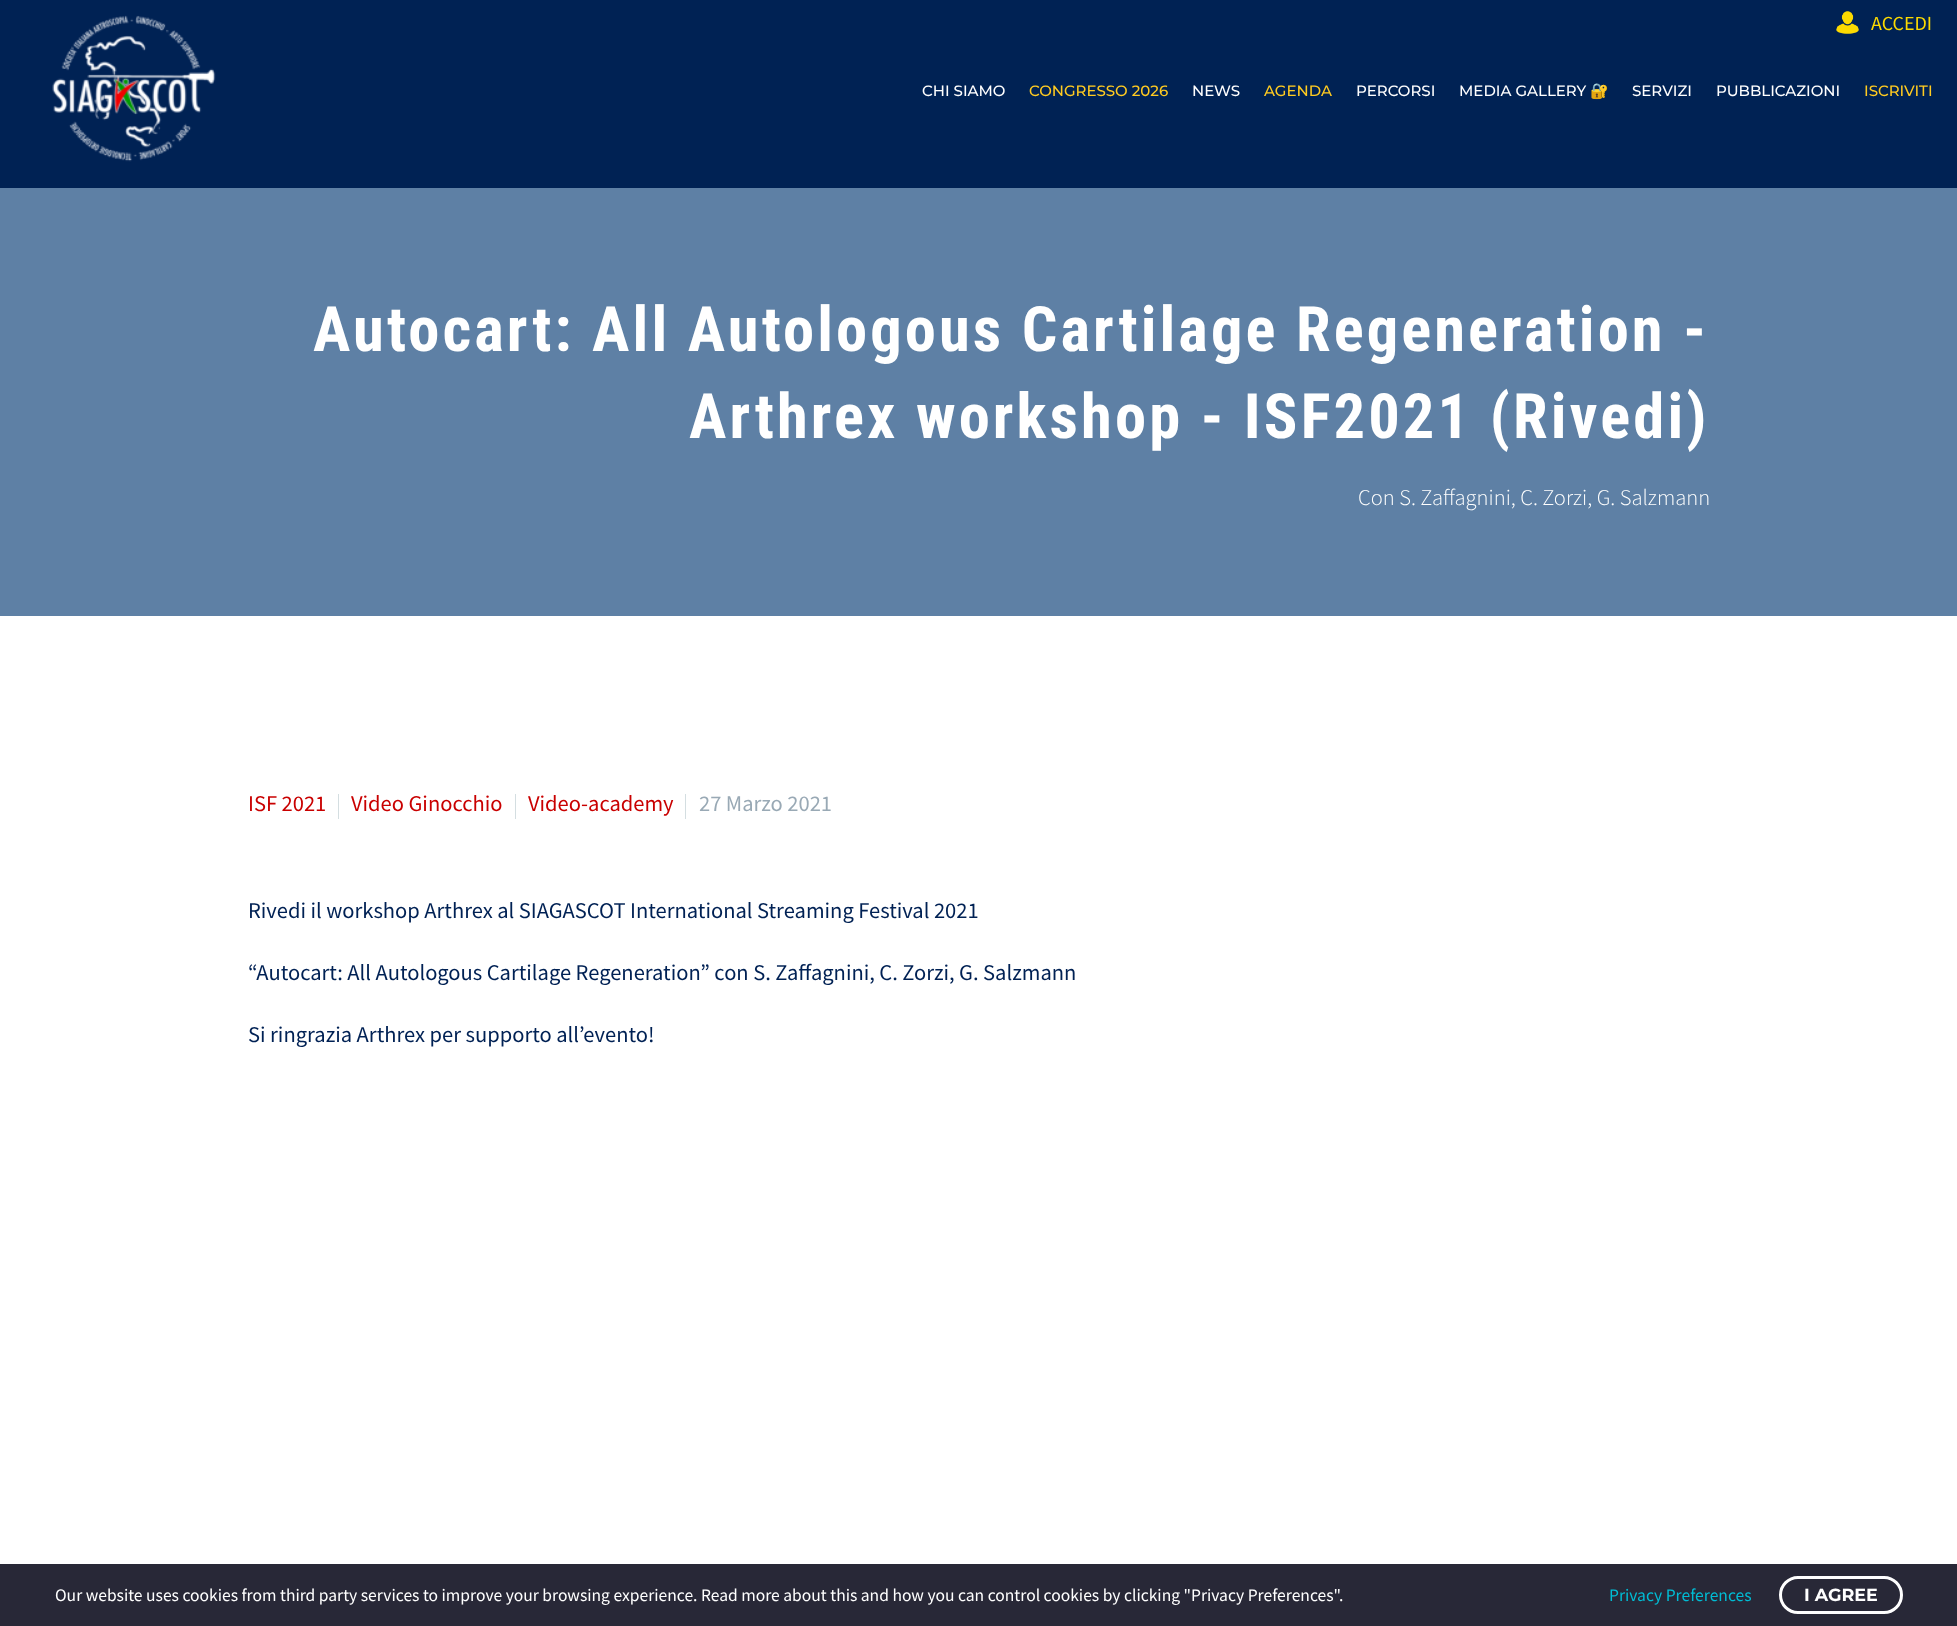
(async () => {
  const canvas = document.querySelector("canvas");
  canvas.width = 1957;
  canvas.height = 1626;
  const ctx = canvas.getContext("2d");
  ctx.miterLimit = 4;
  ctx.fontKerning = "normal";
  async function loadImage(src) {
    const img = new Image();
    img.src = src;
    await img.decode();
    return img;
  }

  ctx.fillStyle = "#ffffff";
  ctx.fillRect(0, 0, 1957, 1626);
  ctx.fillStyle = "#002254";
  ctx.fillRect(0, 0, 1957, 188);
  ctx.drawImage(await loadImage("img/1.png"), 1836, 11, 23, 23);
  ctx.drawImage(await loadImage("img/2.png"), 52, 15, 164, 147);
  for (const [x, y, w, h, color] of [
    [0, 188, 1957, 428, "#5e80a5"],
    [338, 794, 1, 25, "#d4dee1"],
    [515, 794, 1, 25, "#d4dee1"],
    [685, 794, 1, 25, "#d4dee1"],
    [0, 1564, 1957, 62, "#282837"],
  ]) {
    ctx.fillStyle = color;
    ctx.fillRect(x, y, w, h);
  }
  ctx.beginPath();
  ctx.roundRect(1780.5, 1577.5, 121, 35, 17.5);
  ctx.strokeStyle = "#ffffff";
  ctx.lineWidth = 3;
  ctx.stroke();
  ctx.font = "20px Source Sans Pro";
  ctx.fillStyle = "#fcda00";
  ctx.fillText("ACCEDI", 1871, 30);
  ctx.font = "500 15px Montserrat";
  ctx.fillStyle = "#ffffff";
  ctx.fillText("CHI SIAMO", 922, 96);
  ctx.fillStyle = "#ffcb21";
  ctx.fillText("CONGRESSO 2026", 1029, 96);
  ctx.fillStyle = "#ffffff";
  ctx.fillText("NEWS", 1192, 96);
  ctx.fillStyle = "#ffcb21";
  ctx.fillText("AGENDA", 1264, 96);
  ctx.fillStyle = "#ffffff";
  ctx.fillText("PERCORSI", 1356, 96);
  ctx.fillText("MEDIA GALLERY", 1459, 96);
  ctx.font = "15px Noto Color Emoji";
  ctx.fillText("🔐", 1590, 96);
  ctx.font = "500 15px Montserrat";
  ctx.fillText("SERVIZI", 1632, 96);
  ctx.fillText("PUBBLICAZIONI", 1716, 96);
  ctx.fillStyle = "#ffcb21";
  ctx.fillText("ISCRIVITI", 1864, 96);
  ctx.letterSpacing = "3.1px";
  ctx.font = "bold 62.5px Roboto Condensed";
  ctx.fillStyle = "#ffffff";
  ctx.fillText("Autocart: All Autologous Cartilage Regeneration -", 313, 351);
  ctx.fillText("Arthrex workshop - ISF2021 (Rivedi)", 689, 438);
  ctx.letterSpacing = "0px";
  ctx.font = "300 22.5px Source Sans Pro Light";
  ctx.fillText("Con S. Zaffagnini, C. Zorzi, G. Salzmann", 1358, 505);
  ctx.font = "22.5px Source Sans Pro";
  ctx.fillStyle = "#c90000";
  for (const [text, x, y] of [
    ["ISF 2021", 248, 811],
    ["Video Ginocchio", 351, 811],
    ["Video-academy", 528, 811],
  ]) {
    ctx.fillText(text, x, y);
  }
  ctx.fillStyle = "#99a9b5";
  ctx.fillText("27 Marzo 2021", 699, 811);
  ctx.fillStyle = "#002154";
  for (const [text, x, y] of [
    ["Rivedi il workshop Arthrex al SIAGASCOT International Streaming Festival 2021", 248, 918],
    ["“Autocart: All Autologous Cartilage Regeneration” con S. Zaffagnini, C. Zorzi, G. Salzmann", 248, 980],
    ["Si ringrazia Arthrex per supporto all’evento!", 248, 1042],
  ]) {
    ctx.fillText(text, x, y);
  }
  ctx.font = "17.5px Source Sans Pro";
  ctx.fillStyle = "#ffffff";
  ctx.fillText("Our website uses cookies from third party services to improve your browsing experience. Read more about this and how you can control cookies by clicking \"Privacy Preferences\".", 55, 1601);
  ctx.fillStyle = "#00bcd4";
  ctx.fillText("Privacy Preferences", 1609, 1601);
  ctx.font = "bold 17.5px Montserrat";
  ctx.fillStyle = "#ffffff";
  ctx.fillText("I AGREE", 1804, 1601);
})();
